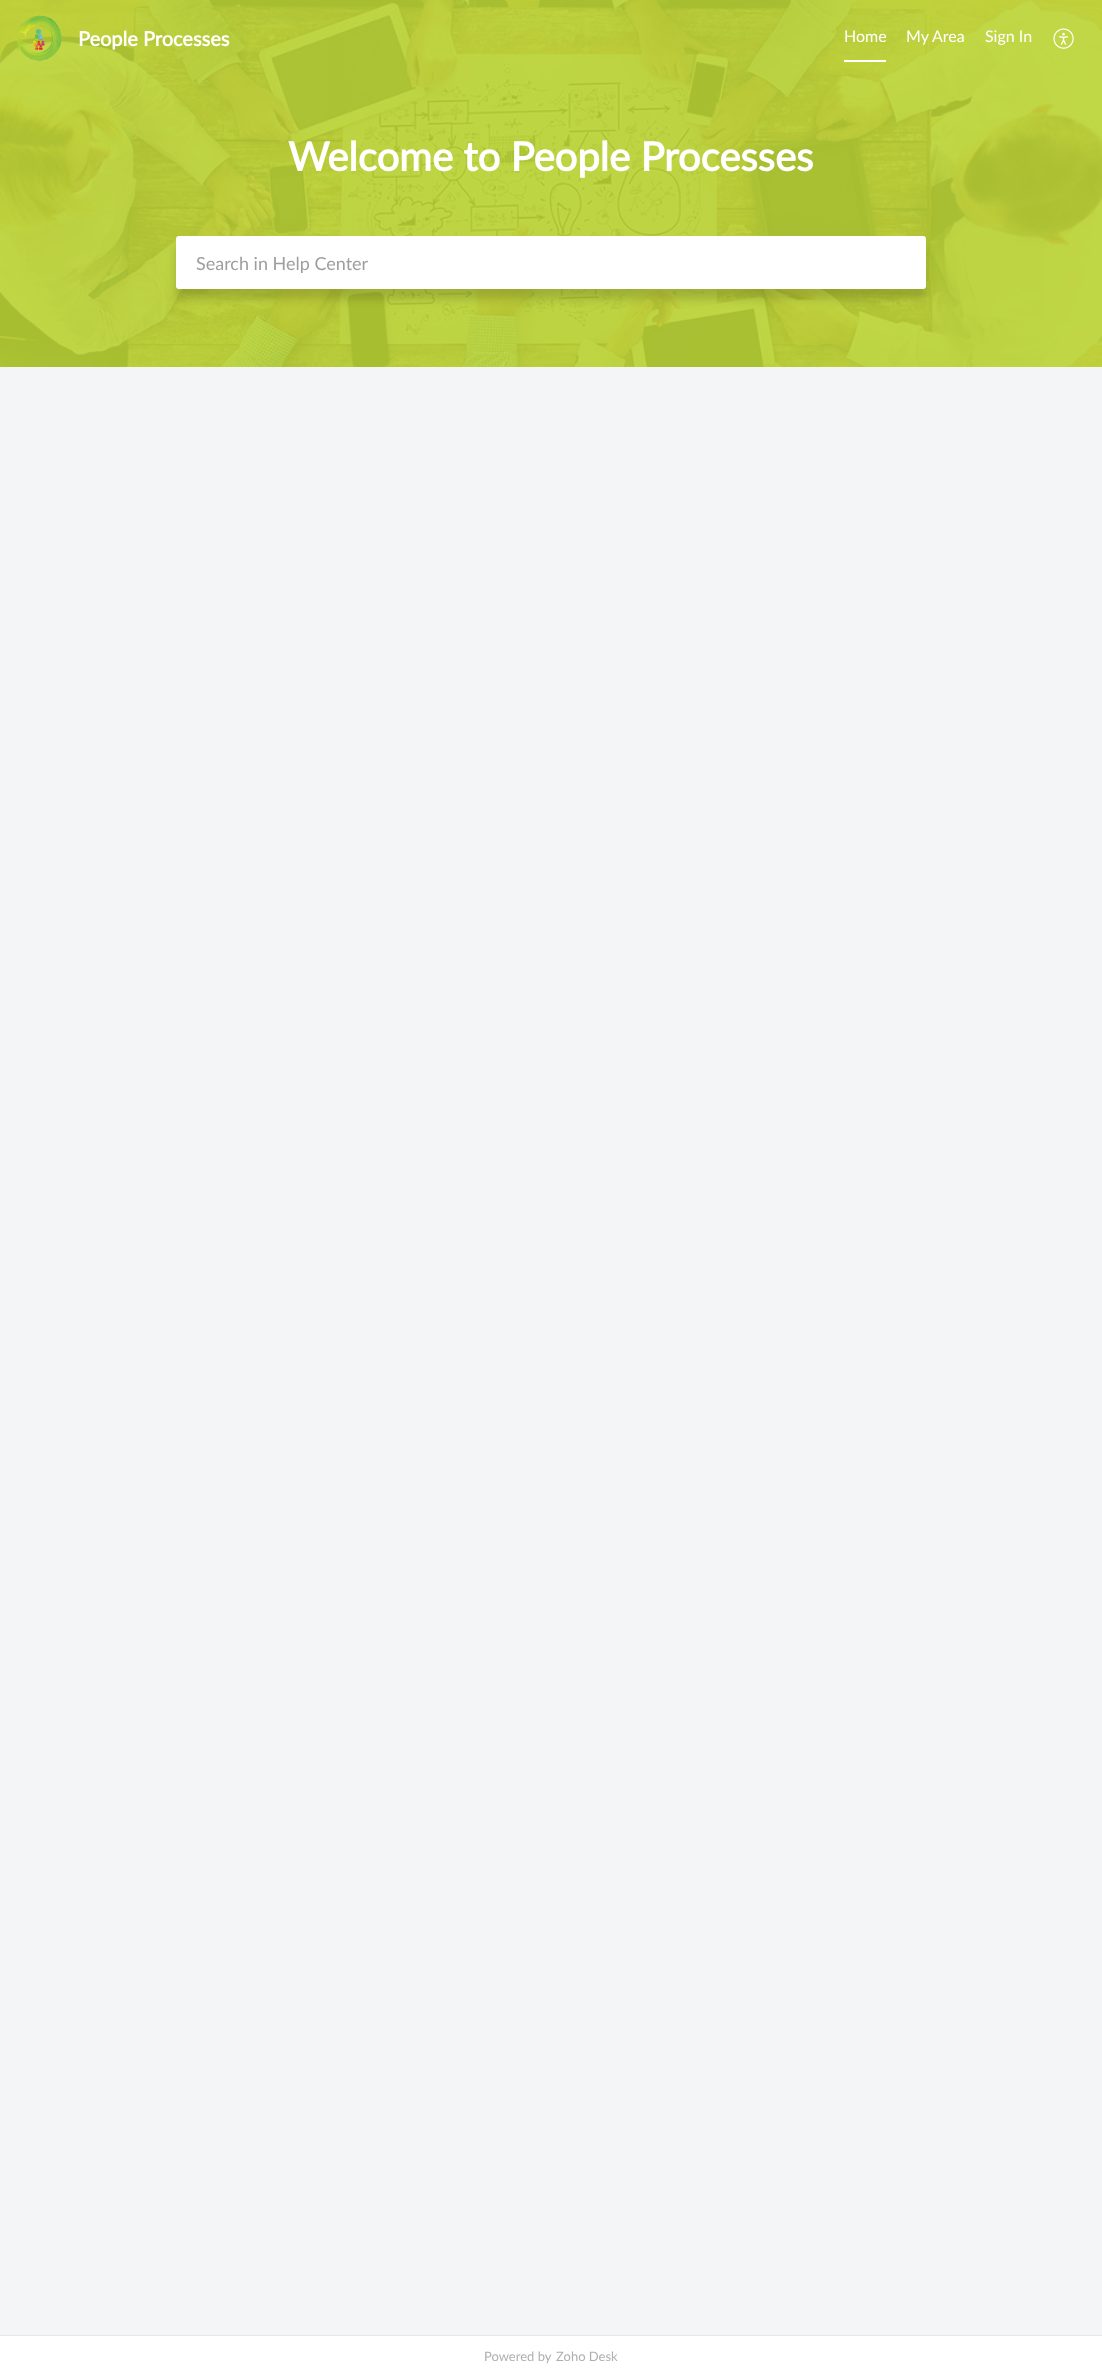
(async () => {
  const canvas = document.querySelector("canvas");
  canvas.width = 1102;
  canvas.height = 2375;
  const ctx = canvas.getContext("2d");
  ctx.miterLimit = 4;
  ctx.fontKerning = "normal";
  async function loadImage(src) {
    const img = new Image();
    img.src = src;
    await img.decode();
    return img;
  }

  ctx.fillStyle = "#f3f5f7";
  ctx.fillRect(0, 0, 1102, 2375);
  ctx.drawImage(await loadImage("img/1.png"), 0, 0, 1102, 367);
  ctx.drawImage(await loadImage("img/2.png"), 17, 15, 45, 46);
  ctx.fillStyle = "#ffffff";
  ctx.fillRect(844, 60, 42, 2);
  ctx.drawImage(await loadImage("img/3.png"), 1053, 28, 21, 21);
  ctx.fillStyle = "rgba(0, 0, 0, 0.16)";
  ctx.filter = "blur(5px)";
  ctx.beginPath();
  ctx.rect(176, 246, 750, 53);
  ctx.fill();
  ctx.filter = "none";
  ctx.fillStyle = "#ffffff";
  ctx.beginPath();
  ctx.roundRect(176, 236, 750, 53, 3);
  ctx.fill();
  ctx.fillRect(0, 2336, 1102, 39);
  ctx.fillStyle = "#e7e7e7";
  ctx.fillRect(0, 2335, 1102, 1);
  ctx.font = "bold 20px Lato";
  ctx.fillStyle = "#ffffff";
  ctx.fillText("People Processes", 78, 46);
  ctx.font = "16px Lato";
  for (const [text, x, y] of [
    ["Home", 844, 42],
    ["My Area", 906, 42],
    ["Sign In", 985, 42],
  ]) {
    ctx.fillText(text, x, y);
  }
  ctx.font = "bold 40px Lato";
  ctx.fillText("Welcome to People Processes", 288, 171);
  ctx.font = "18px Lato";
  ctx.fillStyle = "#9e9e9e";
  ctx.fillText("Search in Help Center", 196, 270);
  ctx.font = "13px Lato";
  ctx.fillStyle = "#afafaf";
  ctx.fillText("Powered by", 484, 2361);
  ctx.fillText("Zoho Desk", 556, 2361);
})();
